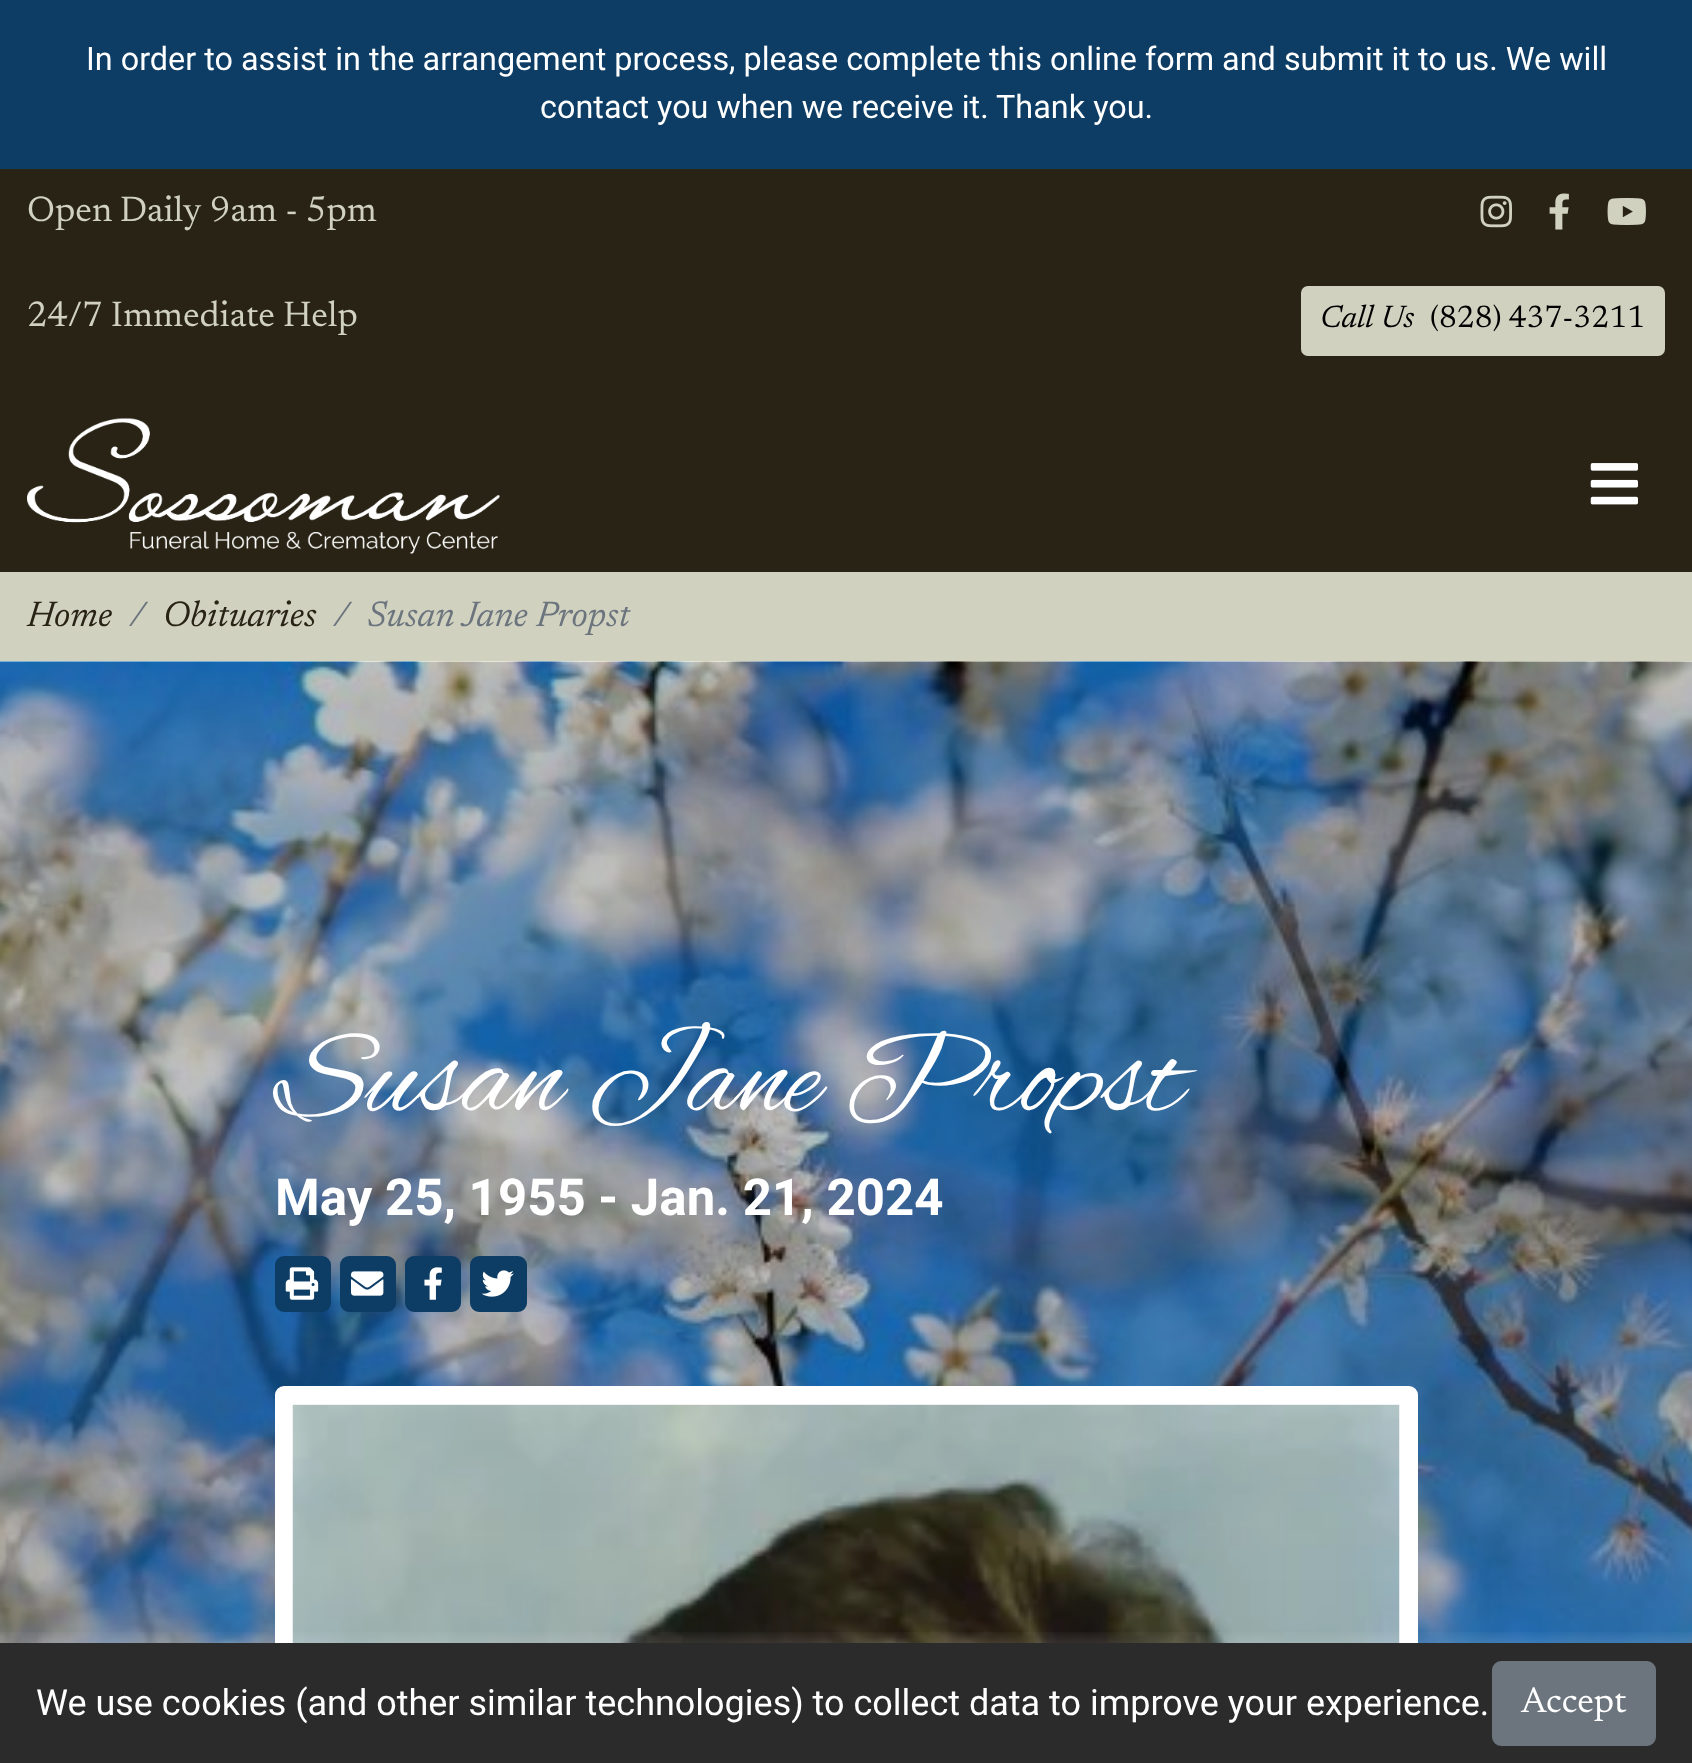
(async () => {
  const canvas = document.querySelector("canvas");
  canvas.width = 1692;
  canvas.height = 1763;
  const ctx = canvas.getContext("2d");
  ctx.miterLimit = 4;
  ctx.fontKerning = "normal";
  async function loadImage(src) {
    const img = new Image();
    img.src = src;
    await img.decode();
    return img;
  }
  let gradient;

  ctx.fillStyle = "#0d3d64";
  ctx.fillRect(0, 0, 1692, 1763);
  ctx.fillStyle = "#282315";
  ctx.fillRect(0, 169, 1692, 403);
  ctx.drawImage(await loadImage("img/1.png"), 1480, 195, 32, 33);
  ctx.drawImage(await loadImage("img/2.png"), 1549, 193, 20, 37);
  ctx.drawImage(await loadImage("img/3.png"), 1607, 198, 39, 27);
  ctx.fillStyle = "#d1d1c0";
  ctx.beginPath();
  ctx.roundRect(1302, 287, 362, 68, 6);
  ctx.fill();
  ctx.strokeStyle = "#d1d1c0";
  ctx.lineWidth = 2;
  ctx.stroke();
  ctx.drawImage(await loadImage("img/4.png"), 27, 418, 473, 136);
  ctx.drawImage(await loadImage("img/5.png"), 1590, 463, 48, 42);
  ctx.fillRect(0, 572, 1692, 90);
  ctx.drawImage(await loadImage("img/6.png"), 0, 661, 1692, 982);
  ctx.fillStyle = "#0d3d64";
  ctx.beginPath();
  ctx.roundRect(276, 1257, 54, 54, 8);
  ctx.fill();
  ctx.strokeStyle = "#0d3d64";
  ctx.stroke();
  ctx.drawImage(await loadImage("img/7.png"), 285, 1267, 34, 33);
  ctx.beginPath();
  ctx.roundRect(341, 1257, 54, 54, 8);
  ctx.fill();
  ctx.stroke();
  ctx.drawImage(await loadImage("img/8.png"), 351, 1271, 33, 25);
  ctx.beginPath();
  ctx.roundRect(406, 1257, 54, 54, 8);
  ctx.fill();
  ctx.stroke();
  ctx.drawImage(await loadImage("img/9.png"), 424, 1267, 18, 33);
  ctx.beginPath();
  ctx.roundRect(471, 1257, 55, 54, 8);
  ctx.fill();
  ctx.stroke();
  ctx.drawImage(await loadImage("img/10.png"), 481, 1270, 33, 27);
  ctx.fillStyle = "#ffffff";
  ctx.beginPath();
  ctx.roundRect(275, 1386, 1143, 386, 9);
  ctx.fill();
  ctx.drawImage(await loadImage("img/11.png"), 292, 1404, 1108, 239);
  gradient = ctx.createLinearGradient(846, 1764, 846, 1629);
  gradient.addColorStop(0.1, "rgba(255, 255, 255, 0.96)");
  gradient.addColorStop(1, "rgba(255, 255, 255, 0)");
  ctx.fillStyle = gradient;
  ctx.fillRect(0, 1632, 1692, 11);
  ctx.fillStyle = "#2b2b2b";
  ctx.fillRect(0, 1643, 1692, 120);
  ctx.fillStyle = "#6c757d";
  ctx.beginPath();
  ctx.roundRect(1493, 1662, 162, 83, 8);
  ctx.fill();
  ctx.strokeStyle = "#6c757d";
  ctx.stroke();
  ctx.font = "32.4px Roboto";
  ctx.fillStyle = "#ffffff";
  ctx.fillText("In order to assist in the arrangement process, please complete this online form and submit it to us. We will", 86, 70);
  ctx.fillText("contact you when we receive it. Thank you.", 540, 118);
  ctx.wordSpacing = "-1px";
  ctx.font = "36px Newsreader";
  ctx.fillStyle = "#d1d1c0";
  ctx.fillText("Open Daily", 27, 221);
  ctx.wordSpacing = "0px";
  ctx.fillText("9am - 5pm", 210, 221);
  ctx.fillText("24/7 Immediate Help", 27, 326);
  ctx.font = "italic 31.5px Newsreader";
  ctx.fillStyle = "#000000";
  ctx.fillText("Call Us", 1320, 327);
  ctx.font = "31.5px Newsreader";
  ctx.fillText("(828) 437-3211", 1430, 327);
  ctx.font = "italic 36px Newsreader";
  ctx.fillStyle = "#282315";
  ctx.fillText("Home", 27, 626);
  ctx.fillStyle = "#6c757d";
  ctx.fillText("/", 130, 626);
  ctx.fillStyle = "#282315";
  ctx.fillText("Obituaries", 163, 626);
  ctx.fillStyle = "#6c757d";
  ctx.fillText("/", 334, 626);
  ctx.fillText("Susan Jane Propst", 367, 626);
  ctx.font = "122.75px Alex Brush";
  ctx.fillStyle = "#ffffff";
  ctx.fillText("Susan Jane Propst", 275, 1110);
  ctx.font = "bold 51px Roboto";
  ctx.fillText("May 25, 1955 - Jan. 21, 2024", 275, 1215);
  ctx.font = "36px Roboto";
  ctx.fillText("We use cookies (and other similar technologies) to collect data to improve your experience.", 36, 1715);
  ctx.font = "36px Newsreader";
  ctx.fillText("Accept", 1521, 1712);
})();
